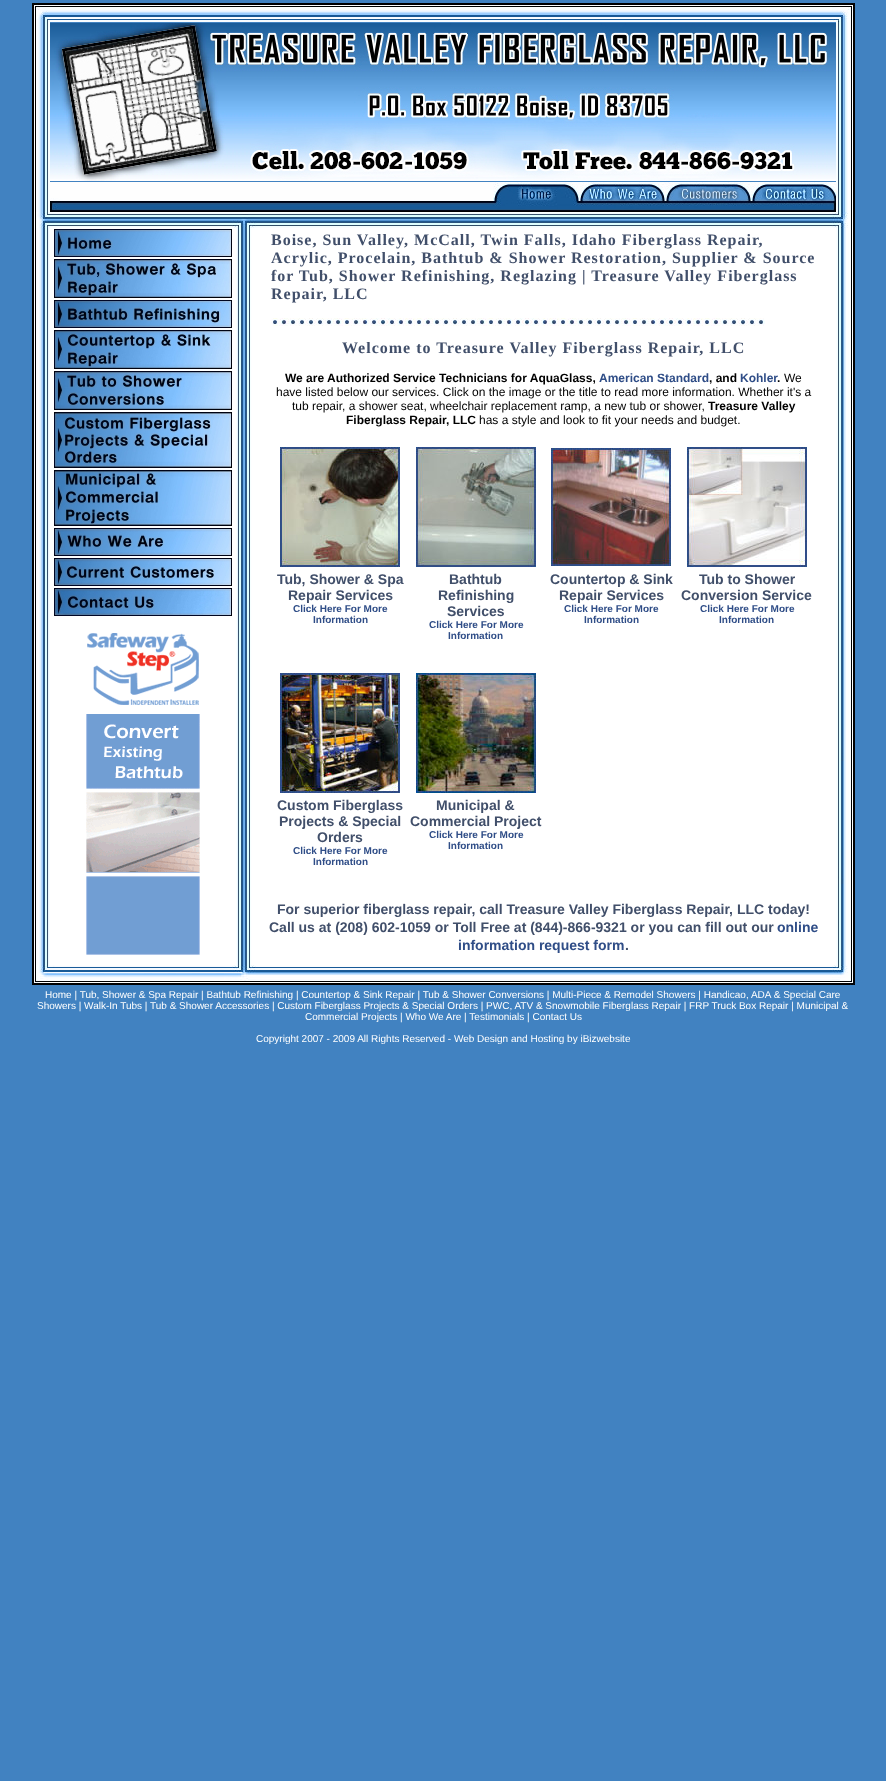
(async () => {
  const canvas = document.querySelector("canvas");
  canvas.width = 886;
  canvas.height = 1781;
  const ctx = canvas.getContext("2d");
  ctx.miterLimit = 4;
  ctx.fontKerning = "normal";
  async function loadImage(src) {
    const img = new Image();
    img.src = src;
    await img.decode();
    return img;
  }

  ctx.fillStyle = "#4182c1";
  ctx.fillRect(0, 0, 886, 1781);
  ctx.drawImage(await loadImage("img/1.png"), 32, 3, 823, 19);
  ctx.drawImage(await loadImage("img/2.png"), 32, 22, 18, 190);
  ctx.drawImage(await loadImage("img/3.png"), 50, 23, 786, 158);
  ctx.drawImage(await loadImage("img/4.png"), 836, 22, 19, 190);
  ctx.drawImage(await loadImage("img/5.png"), 50, 182, 443, 30);
  ctx.drawImage(await loadImage("img/6.png"), 493, 182, 87, 30);
  ctx.drawImage(await loadImage("img/7.png"), 580, 182, 86, 30);
  ctx.drawImage(await loadImage("img/8.png"), 666, 182, 86, 30);
  ctx.drawImage(await loadImage("img/9.png"), 752, 182, 84, 30);
  ctx.drawImage(await loadImage("img/10.png"), 32, 212, 823, 16);
  ctx.drawImage(await loadImage("img/11.png"), 32, 228, 18, 737);
  ctx.fillStyle = "#ffffff";
  ctx.fillRect(50, 228, 186, 737);
  ctx.drawImage(await loadImage("img/12.png"), 54, 229, 178, 28);
  ctx.drawImage(await loadImage("img/13.png"), 54, 259, 178, 39);
  ctx.drawImage(await loadImage("img/14.png"), 54, 300, 178, 28);
  ctx.drawImage(await loadImage("img/15.png"), 54, 330, 178, 39);
  ctx.drawImage(await loadImage("img/16.png"), 54, 371, 178, 39);
  ctx.drawImage(await loadImage("img/17.png"), 54, 412, 178, 56);
  ctx.drawImage(await loadImage("img/18.png"), 54, 470, 178, 56);
  ctx.drawImage(await loadImage("img/19.png"), 54, 528, 178, 28);
  ctx.drawImage(await loadImage("img/20.png"), 54, 558, 178, 28);
  ctx.drawImage(await loadImage("img/21.png"), 54, 588, 178, 28);
  ctx.drawImage(await loadImage("img/22.png"), 86, 633, 114, 322);
  ctx.drawImage(await loadImage("img/23.png"), 236, 228, 16, 737);
  ctx.fillRect(252, 228, 584, 737);
  ctx.drawImage(await loadImage("img/24.png"), 836, 228, 19, 737);
  ctx.drawImage(await loadImage("img/25.png"), 841, 543, 3, 218);
  ctx.drawImage(await loadImage("img/26.png"), 271, 318, 494, 8);
  ctx.drawImage(await loadImage("img/27.png"), 280, 447, 120, 120);
  ctx.drawImage(await loadImage("img/28.png"), 416, 447, 120, 120);
  ctx.drawImage(await loadImage("img/29.png"), 551, 448, 120, 118);
  ctx.drawImage(await loadImage("img/30.png"), 687, 447, 120, 120);
  ctx.drawImage(await loadImage("img/31.png"), 280, 673, 120, 120);
  ctx.drawImage(await loadImage("img/32.png"), 416, 673, 120, 120);
  ctx.drawImage(await loadImage("img/33.png"), 32, 965, 823, 20);
  ctx.letterSpacing = "1px";
  ctx.font = "bold 16px Liberation Serif";
  ctx.fillStyle = "#414f6a";
  for (const [text, x, y] of [
    ["Boise, Sun Valley, McCall, Twin Falls, Idaho Fiberglass Repair,", 271, 245],
    ["Acrylic, Procelain, Bathtub & Shower Restoration, Supplier & Source", 271, 263],
    ["for Tub, Shower Refinishing, Reglazing | Treasure Valley Fiberglass", 271, 281],
    ["Repair, LLC", 271, 299],
    ["Welcome to Treasure Valley Fiberglass Repair, LLC", 342, 353],
  ]) {
    ctx.fillText(text, x, y);
  }
  ctx.letterSpacing = "0px";
  ctx.font = "bold 12px Liberation Sans";
  ctx.fillStyle = "#000000";
  ctx.fillText("We are Authorized Service Technicians for AquaGlass,", 285, 382);
  ctx.fillStyle = "#2f4d87";
  ctx.fillText("American Standard", 599, 382);
  ctx.fillStyle = "#000000";
  ctx.fillText(", and", 709, 382);
  ctx.fillStyle = "#2f4d87";
  ctx.fillText("Kohler", 740, 382);
  ctx.fillStyle = "#000000";
  ctx.fillText(".", 777, 382);
  ctx.font = "12px Liberation Sans";
  for (const [text, x, y] of [
    ["We", 784, 382],
    ["have listed below our services. Click on the image or the title to read more information. Whether it's a", 276, 396],
    ["tub repair, a shower seat, wheelchair replacement ramp, a new tub or shower,", 292, 410],
  ]) {
    ctx.fillText(text, x, y);
  }
  ctx.font = "bold 12px Liberation Sans";
  ctx.fillText("Treasure Valley", 708, 410);
  ctx.fillText("Fiberglass Repair, LLC", 346, 424);
  ctx.font = "12px Liberation Sans";
  ctx.fillText("has a style and look to fit your needs and budget.", 479, 424);
  ctx.font = "bold 14px Liberation Sans";
  ctx.fillStyle = "#414f6a";
  ctx.fillText("Tub, Shower & Spa", 277, 584);
  ctx.fillText("Repair Services", 288, 600);
  ctx.font = "bold 10px Liberation Sans";
  ctx.fillStyle = "#2f4d87";
  ctx.fillText("Click Here For More", 293, 612);
  ctx.fillText("Information", 313, 623);
  ctx.font = "bold 14px Liberation Sans";
  ctx.fillStyle = "#414f6a";
  for (const [text, x, y] of [
    ["Bathtub", 449, 584],
    ["Refinishing", 438, 600],
    ["Services", 447, 616],
  ]) {
    ctx.fillText(text, x, y);
  }
  ctx.font = "bold 10px Liberation Sans";
  ctx.fillStyle = "#2f4d87";
  ctx.fillText("Click Here For More", 429, 628);
  ctx.fillText("Information", 448, 639);
  ctx.font = "bold 14px Liberation Sans";
  ctx.fillStyle = "#414f6a";
  ctx.fillText("Countertop & Sink", 550, 584);
  ctx.fillText("Repair Services", 559, 600);
  ctx.font = "bold 10px Liberation Sans";
  ctx.fillStyle = "#2f4d87";
  ctx.fillText("Click Here For More", 564, 612);
  ctx.fillText("Information", 584, 623);
  ctx.font = "bold 14px Liberation Sans";
  ctx.fillStyle = "#414f6a";
  ctx.fillText("Tub to Shower", 699, 584);
  ctx.fillText("Conversion Service", 681, 600);
  ctx.font = "bold 10px Liberation Sans";
  ctx.fillStyle = "#2f4d87";
  ctx.fillText("Click Here For More", 700, 612);
  ctx.fillText("Information", 719, 623);
  ctx.font = "bold 14px Liberation Sans";
  ctx.fillStyle = "#414f6a";
  for (const [text, x, y] of [
    ["Custom Fiberglass", 277, 810],
    ["Projects & Special", 279, 826],
    ["Orders", 317, 842],
  ]) {
    ctx.fillText(text, x, y);
  }
  ctx.font = "bold 10px Liberation Sans";
  ctx.fillStyle = "#2f4d87";
  ctx.fillText("Click Here For More", 293, 854);
  ctx.fillText("Information", 313, 865);
  ctx.font = "bold 14px Liberation Sans";
  ctx.fillStyle = "#414f6a";
  ctx.fillText("Municipal &", 436, 810);
  ctx.fillText("Commercial Project", 410, 826);
  ctx.font = "bold 10px Liberation Sans";
  ctx.fillStyle = "#2f4d87";
  ctx.fillText("Click Here For More", 429, 838);
  ctx.fillText("Information", 448, 849);
  ctx.font = "bold 14px Liberation Sans";
  ctx.fillStyle = "#414f6a";
  ctx.fillText("For superior fiberglass repair, call Treasure Valley Fiberglass Repair, LLC today!", 277, 914);
  ctx.fillText("Call us at (208) 602-1059 or Toll Free at (844)-866-9321 or you can fill out our", 269, 932);
  ctx.fillStyle = "#2f4d87";
  ctx.fillText("online", 777, 932);
  ctx.fillText("information request form", 458, 950);
  ctx.fillStyle = "#414f6a";
  ctx.fillText(".", 625, 950);
  ctx.font = "10px Liberation Sans";
  ctx.fillStyle = "#ffffff";
  for (const [text, x, y] of [
    ["Home | Tub, Shower & Spa Repair | Bathtub Refinishing | Countertop & Sink Repair | Tub & Shower Conversions | Multi-Piece & Remodel Showers | Handicao, ADA & Special Care", 45, 998],
    ["Showers | Walk-In Tubs | Tub & Shower Accessories | Custom Fiberglass Projects & Special Orders | PWC, ATV & Snowmobile Fiberglass Repair | FRP Truck Box Repair | Municipal &", 37, 1009],
    ["Commercial Projects | Who We Are | Testimonials | Contact Us", 305, 1020],
    ["Copyright 2007 - 2009 All Rights Reserved - Web Design and Hosting by iBizwebsite", 256, 1042],
  ]) {
    ctx.fillText(text, x, y);
  }
})();
